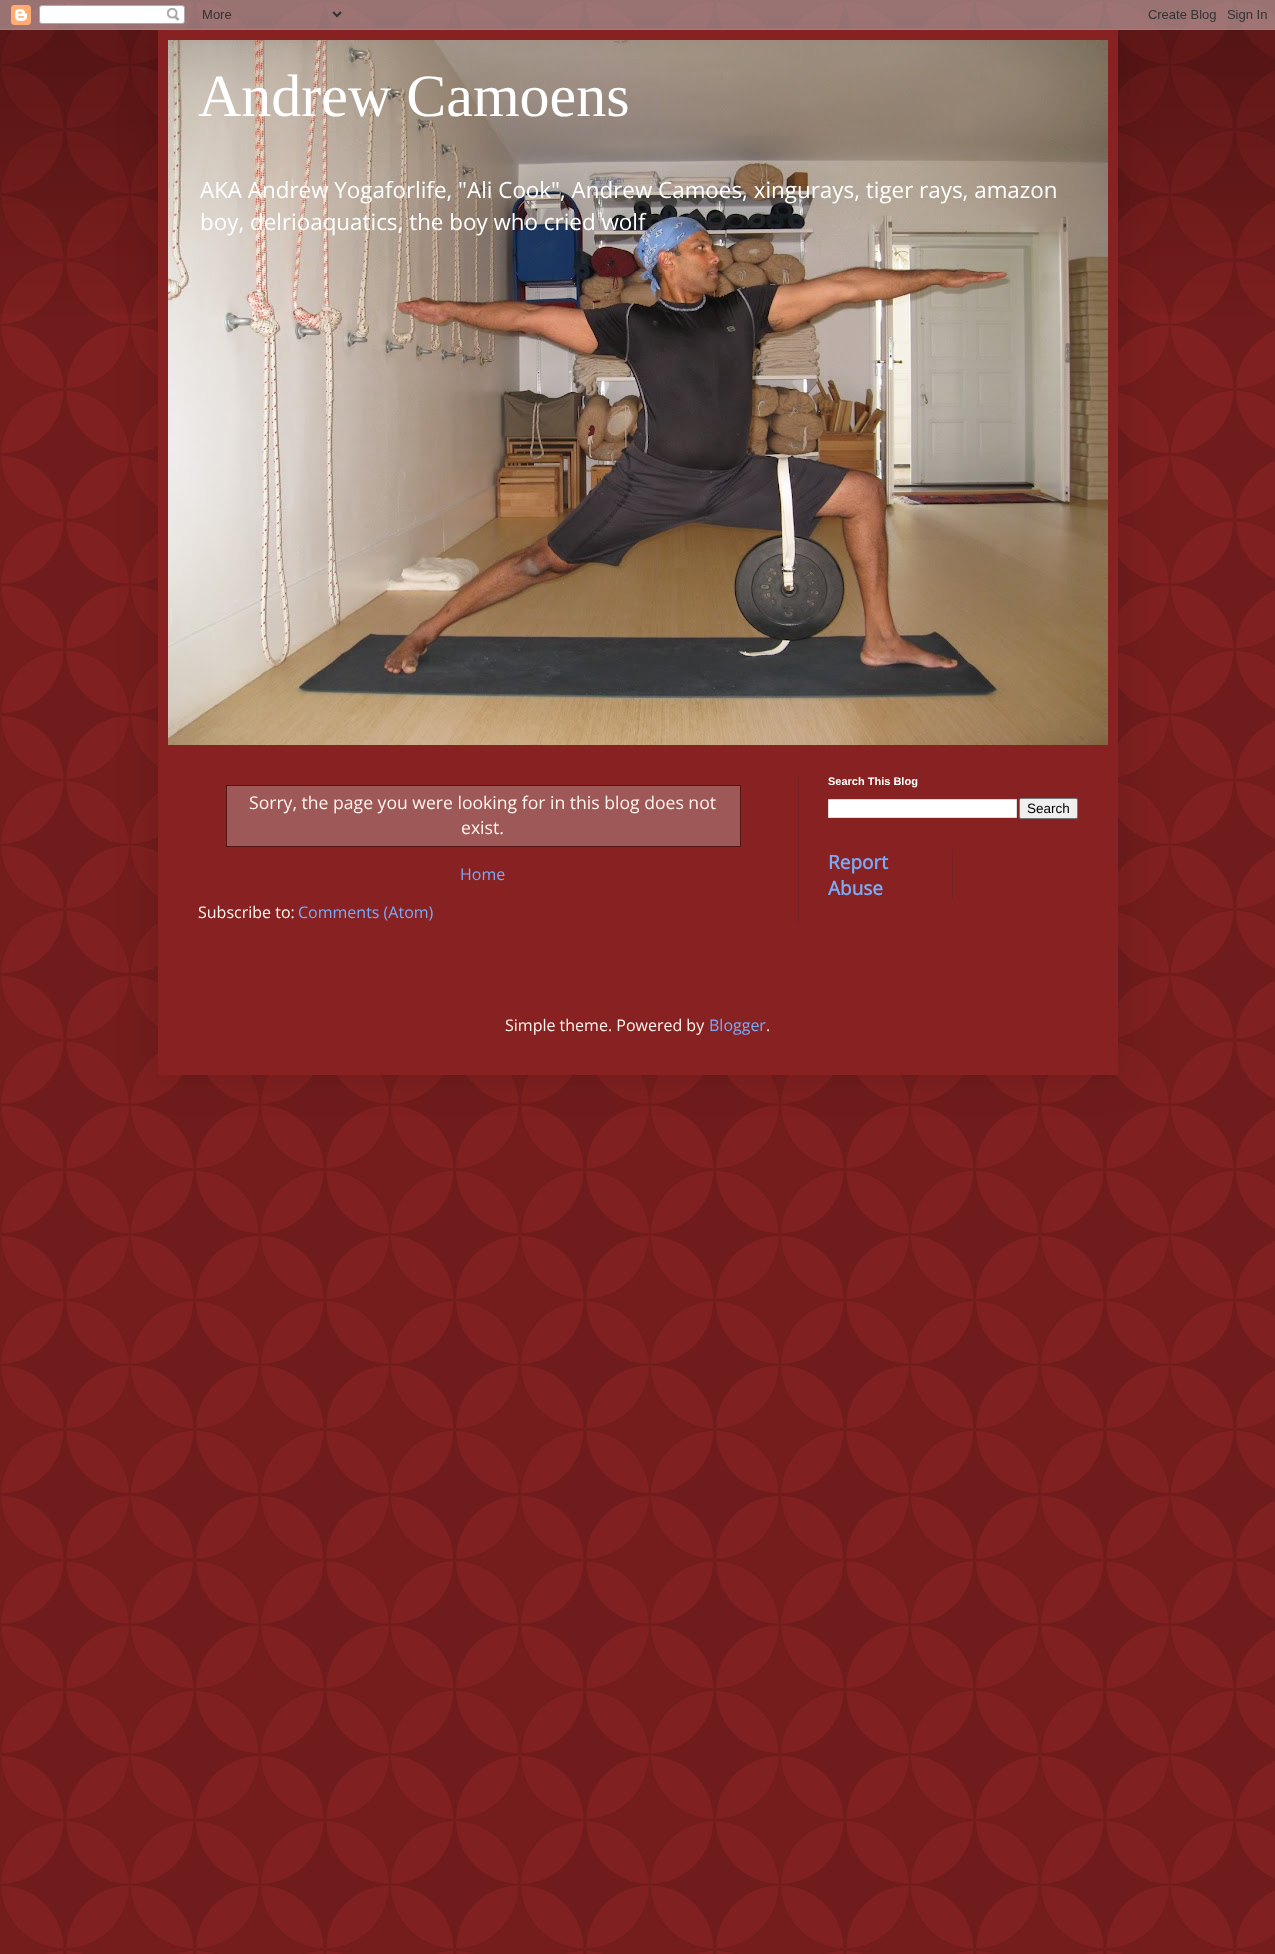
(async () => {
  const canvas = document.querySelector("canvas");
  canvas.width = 1275;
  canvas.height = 1954;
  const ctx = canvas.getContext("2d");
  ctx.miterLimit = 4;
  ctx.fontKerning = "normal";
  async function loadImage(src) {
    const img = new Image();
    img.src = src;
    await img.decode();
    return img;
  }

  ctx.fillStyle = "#882222";
  ctx.fillRect(0, 0, 1275, 1954);
  ctx.drawImage(await loadImage("img/1.png"), 0, 0, 1275, 1954);
  ctx.drawImage(await loadImage("img/2.png"), 0, 0, 1275, 314);
  ctx.fillStyle = "rgba(0, 0, 0, 0.15)";
  ctx.filter = "blur(20px)";
  ctx.beginPath();
  ctx.rect(158, 30, 960, 1045);
  ctx.fill();
  ctx.filter = "none";
  ctx.drawImage(await loadImage("img/3.png"), 0, 0, 1275, 30);
  ctx.fillStyle = "#882222";
  ctx.fillRect(158, 30, 960, 1045);
  ctx.drawImage(await loadImage("img/4.png"), 168, 40, 940, 705);
  ctx.fillStyle = "#772222";
  ctx.fillRect(798, 775, 1, 149);
  ctx.strokeStyle = "#521414";
  ctx.strokeRect(226.5, 785.5, 514, 61);
  ctx.fillStyle = "#9e5858";
  ctx.fillRect(227, 786, 513, 60);
  ctx.fillStyle = "#ffffff";
  ctx.beginPath();
  ctx.rect(828.5, 799.5, 188, 18);
  ctx.fill();
  ctx.strokeStyle = "#dddddd";
  ctx.stroke();
  ctx.fillStyle = "#efefef";
  ctx.beginPath();
  ctx.roundRect(1019.5, 798.5, 58, 20, 1.5);
  ctx.fill();
  ctx.strokeStyle = "#767676";
  ctx.stroke();
  ctx.fillStyle = "#772222";
  ctx.fillRect(952, 849, 1, 52);
  ctx.font = "60px Liberation Serif";
  ctx.fillStyle = "#ffffff";
  ctx.fillText("Andrew Camoens", 198, 116);
  ctx.font = "22.4px Open Sans";
  ctx.fillText("AKA Andrew Yogaforlife, \"Ali Cook\", Andrew Camoes, xingurays, tiger rays, amazon", 200, 198);
  ctx.fillText("boy, delrioaquatics, the boy who cried wolf", 200, 230);
  ctx.font = "17.6px Open Sans";
  ctx.fillStyle = "#fff5ee";
  ctx.fillText("Sorry, the page you were looking for in this blog does not", 249, 809);
  ctx.fillText("exist.", 461, 834);
  ctx.font = "16px Open Sans";
  ctx.fillStyle = "#7baaf7";
  ctx.fillText("Home", 460, 880);
  ctx.fillStyle = "#fff5ee";
  ctx.fillText("Subscribe to:", 198, 918);
  ctx.fillStyle = "#7baaf7";
  ctx.fillText("Comments (Atom)", 298, 918);
  ctx.font = "bold 11px Liberation Sans";
  ctx.fillStyle = "#ffffff";
  ctx.fillText("Search This Blog", 828, 785);
  ctx.font = "13.5px Liberation Sans";
  ctx.fillStyle = "#000000";
  ctx.fillText("Search", 1027, 813);
  ctx.font = "bold 19px Open Sans";
  ctx.fillStyle = "#7baaf7";
  ctx.fillText("Report", 828, 869);
  ctx.fillText("Abuse", 828, 895);
  ctx.font = "16px Open Sans";
  ctx.fillStyle = "#fff5ee";
  ctx.fillText("Simple theme. Powered by", 505, 1031);
  ctx.fillStyle = "#7baaf7";
  ctx.fillText("Blogger", 709, 1031);
  ctx.fillStyle = "#fff5ee";
  ctx.fillText(".", 766, 1031);
})();
